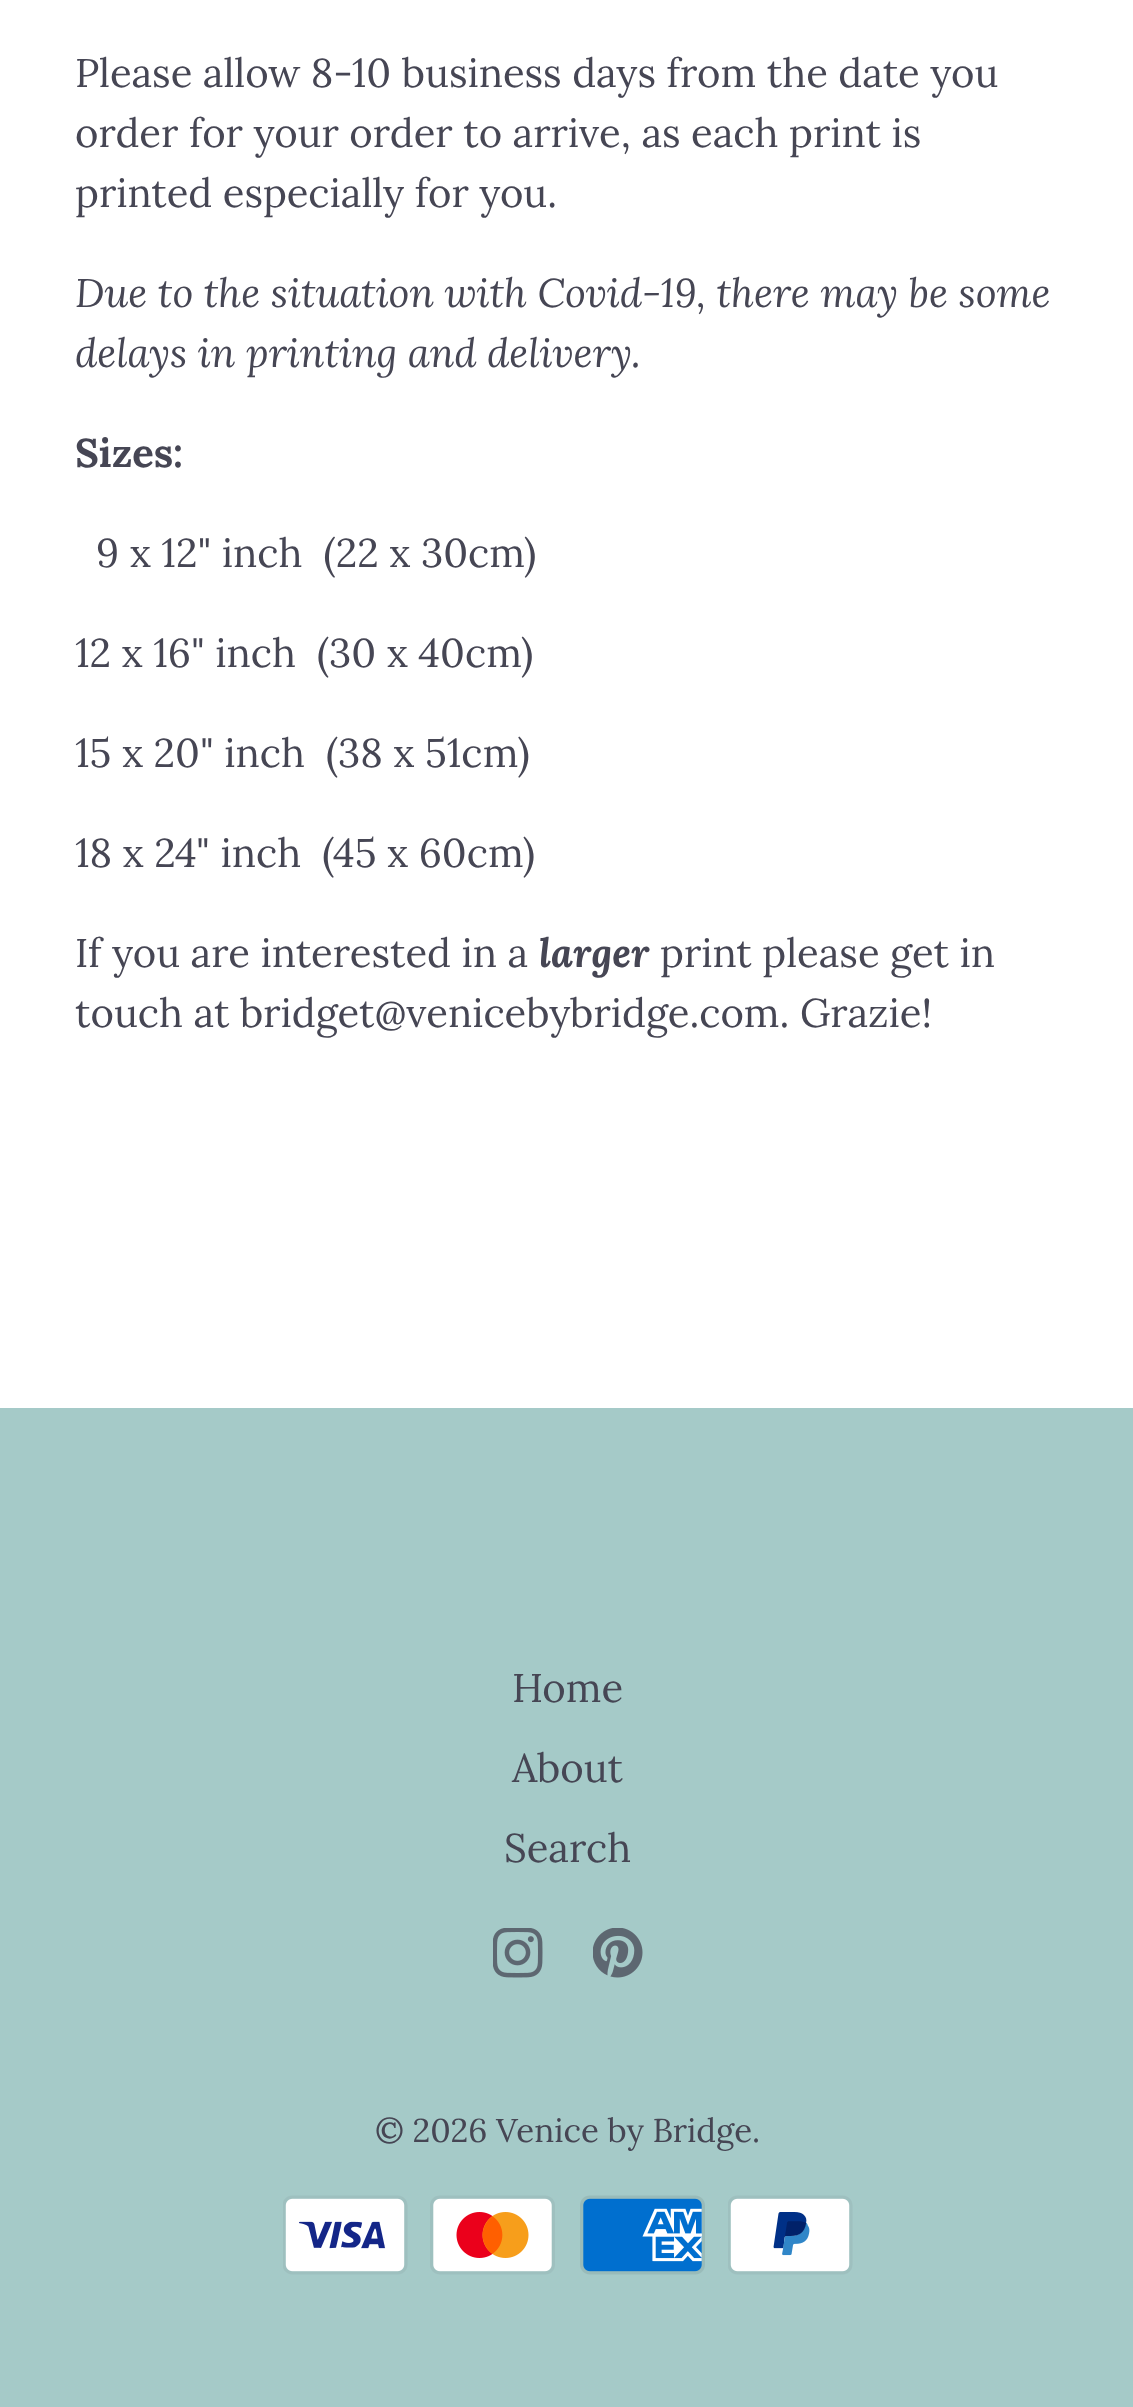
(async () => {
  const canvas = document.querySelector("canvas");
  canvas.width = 1133;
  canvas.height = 2407;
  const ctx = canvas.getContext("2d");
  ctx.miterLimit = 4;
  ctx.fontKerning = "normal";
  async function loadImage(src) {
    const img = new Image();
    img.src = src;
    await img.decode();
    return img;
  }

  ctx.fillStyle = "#ffffff";
  ctx.fillRect(0, 0, 1133, 2407);
  ctx.fillStyle = "#a5cac8";
  ctx.fillRect(0, 1408, 1133, 999);
  ctx.drawImage(await loadImage("img/1.png"), 493, 1928, 50, 50);
  ctx.drawImage(await loadImage("img/2.png"), 593, 1928, 50, 50);
  ctx.drawImage(await loadImage("img/3.png"), 283, 2195, 125, 80);
  ctx.drawImage(await loadImage("img/4.png"), 430, 2195, 125, 80);
  ctx.drawImage(await loadImage("img/5.png"), 580, 2195, 125, 80);
  ctx.drawImage(await loadImage("img/6.png"), 728, 2195, 125, 80);
  ctx.font = "40px Lora";
  ctx.fillStyle = "#464654";
  for (const [text, x, y] of [
    ["Please allow 8-10 business days from the date you", 75, 87],
    ["order for your order to arrive, as each print is", 75, 147],
    ["printed especially for you.", 75, 207],
  ]) {
    ctx.fillText(text, x, y);
  }
  ctx.font = "italic 40px Lora";
  ctx.fillText("Due to the situation with Covid-19, there may be some", 75, 307);
  ctx.fillText("delays in printing and delivery.", 75, 367);
  ctx.font = "bold 40px Lora";
  ctx.fillText("Sizes:", 75, 467);
  ctx.font = "40px Lora";
  for (const [text, x, y] of [
    ["9 x 12\" inch  (22 x 30cm)", 96, 567],
    ["12 x 16\" inch  (", 75, 667],
    ["30 x 40cm)", 329, 667],
    ["15 x 20\" inch  (", 75, 767],
    ["38 x 51cm)", 338, 767],
    ["18 x 24\" inch  (", 75, 867],
    ["45 x 60cm)", 333, 867],
    ["If you are interested in a", 75, 967],
  ]) {
    ctx.fillText(text, x, y);
  }
  ctx.font = "italic bold 40px Lora";
  ctx.fillText("larger", 539, 967);
  ctx.font = "40px Lora";
  for (const [text, x, y] of [
    ["print please get in", 660, 967],
    ["touch at bridget@venicebybridge.com. Grazie!", 75, 1027],
    ["Home", 512, 1702],
    ["About", 512, 1782],
    ["Search", 504, 1862],
  ]) {
    ctx.fillText(text, x, y);
  }
  ctx.font = "33px Lora";
  ctx.fillText("© 2026 Venice by Bridge.", 375, 2142);
})();
